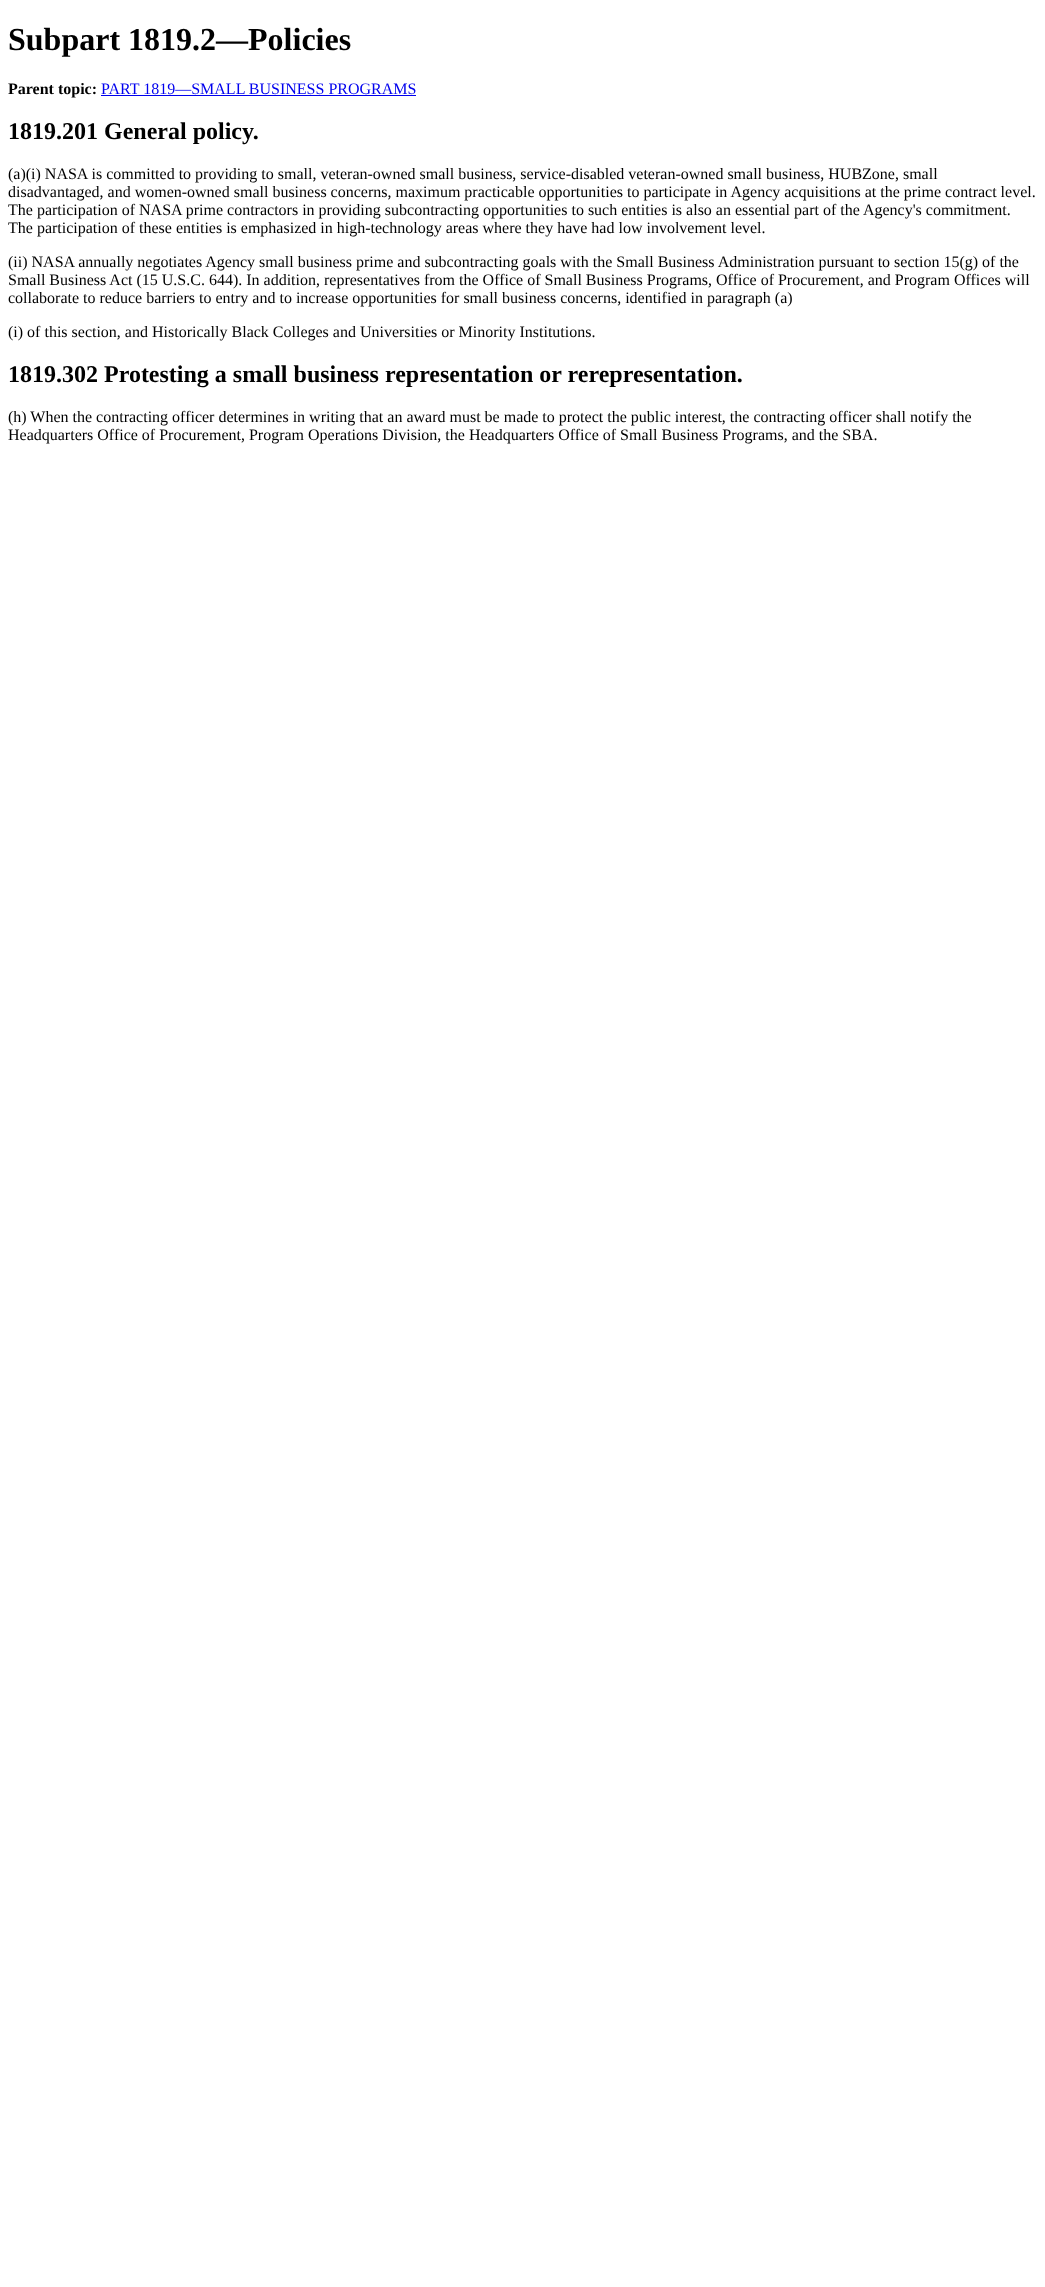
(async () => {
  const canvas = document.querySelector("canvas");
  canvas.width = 1045;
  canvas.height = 2287;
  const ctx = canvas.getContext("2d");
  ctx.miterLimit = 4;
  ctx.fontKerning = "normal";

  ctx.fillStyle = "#ffffff";
  ctx.fillRect(0, 0, 1045, 2287);
  ctx.fillStyle = "#0000ee";
  ctx.fillRect(101, 95, 315, 1);
  ctx.font = "bold 32px Liberation Serif";
  ctx.fillStyle = "#000000";
  ctx.fillText("Subpart 1819.2—Policies", 8, 50);
  ctx.font = "bold 16px Liberation Serif";
  ctx.fillText("Parent topic:", 8, 94);
  ctx.font = "16px Liberation Serif";
  ctx.fillStyle = "#0000ee";
  ctx.fillText("PART 1819—SMALL BUSINESS PROGRAMS", 101, 94);
  ctx.font = "bold 24px Liberation Serif";
  ctx.fillStyle = "#000000";
  ctx.fillText("1819.201 General policy.", 8, 139);
  ctx.font = "16px Liberation Serif";
  for (const [text, x, y] of [
    ["(a)(i) NASA is committed to providing to small, veteran-owned small business, service-disabled veteran-owned small business, HUBZone, small", 8, 179],
    ["disadvantaged, and women-owned small business concerns, maximum practicable opportunities to participate in Agency acquisitions at the prime contract level.", 8, 197],
    ["The participation of NASA prime contractors in providing subcontracting opportunities to such entities is also an essential part of the Agency's commitment.", 8, 215],
    ["The participation of these entities is emphasized in high-technology areas where they have had low involvement level.", 8, 233],
    ["(ii) NASA annually negotiates Agency small business prime and subcontracting goals with the Small Business Administration pursuant to section 15(g) of the", 8, 267],
    ["Small Business Act (15 U.S.C. 644). In addition, representatives from the Office of Small Business Programs, Office of Procurement, and Program Offices will", 8, 285],
    ["collaborate to reduce barriers to entry and to increase opportunities for small business concerns, identified in paragraph (a)", 8, 303],
    ["(i) of this section, and Historically Black Colleges and Universities or Minority Institutions.", 8, 337],
  ]) {
    ctx.fillText(text, x, y);
  }
  ctx.font = "bold 24px Liberation Serif";
  ctx.fillText("1819.302 Protesting a small business representation or rerepresentation.", 8, 382);
  ctx.font = "16px Liberation Serif";
  ctx.fillText("(h) When the contracting officer determines in writing that an award must be made to protect the public interest, the contracting officer shall notify the", 8, 422);
  ctx.fillText("Headquarters Office of Procurement, Program Operations Division, the Headquarters Office of Small Business Programs, and the SBA.", 8, 440);
})();
